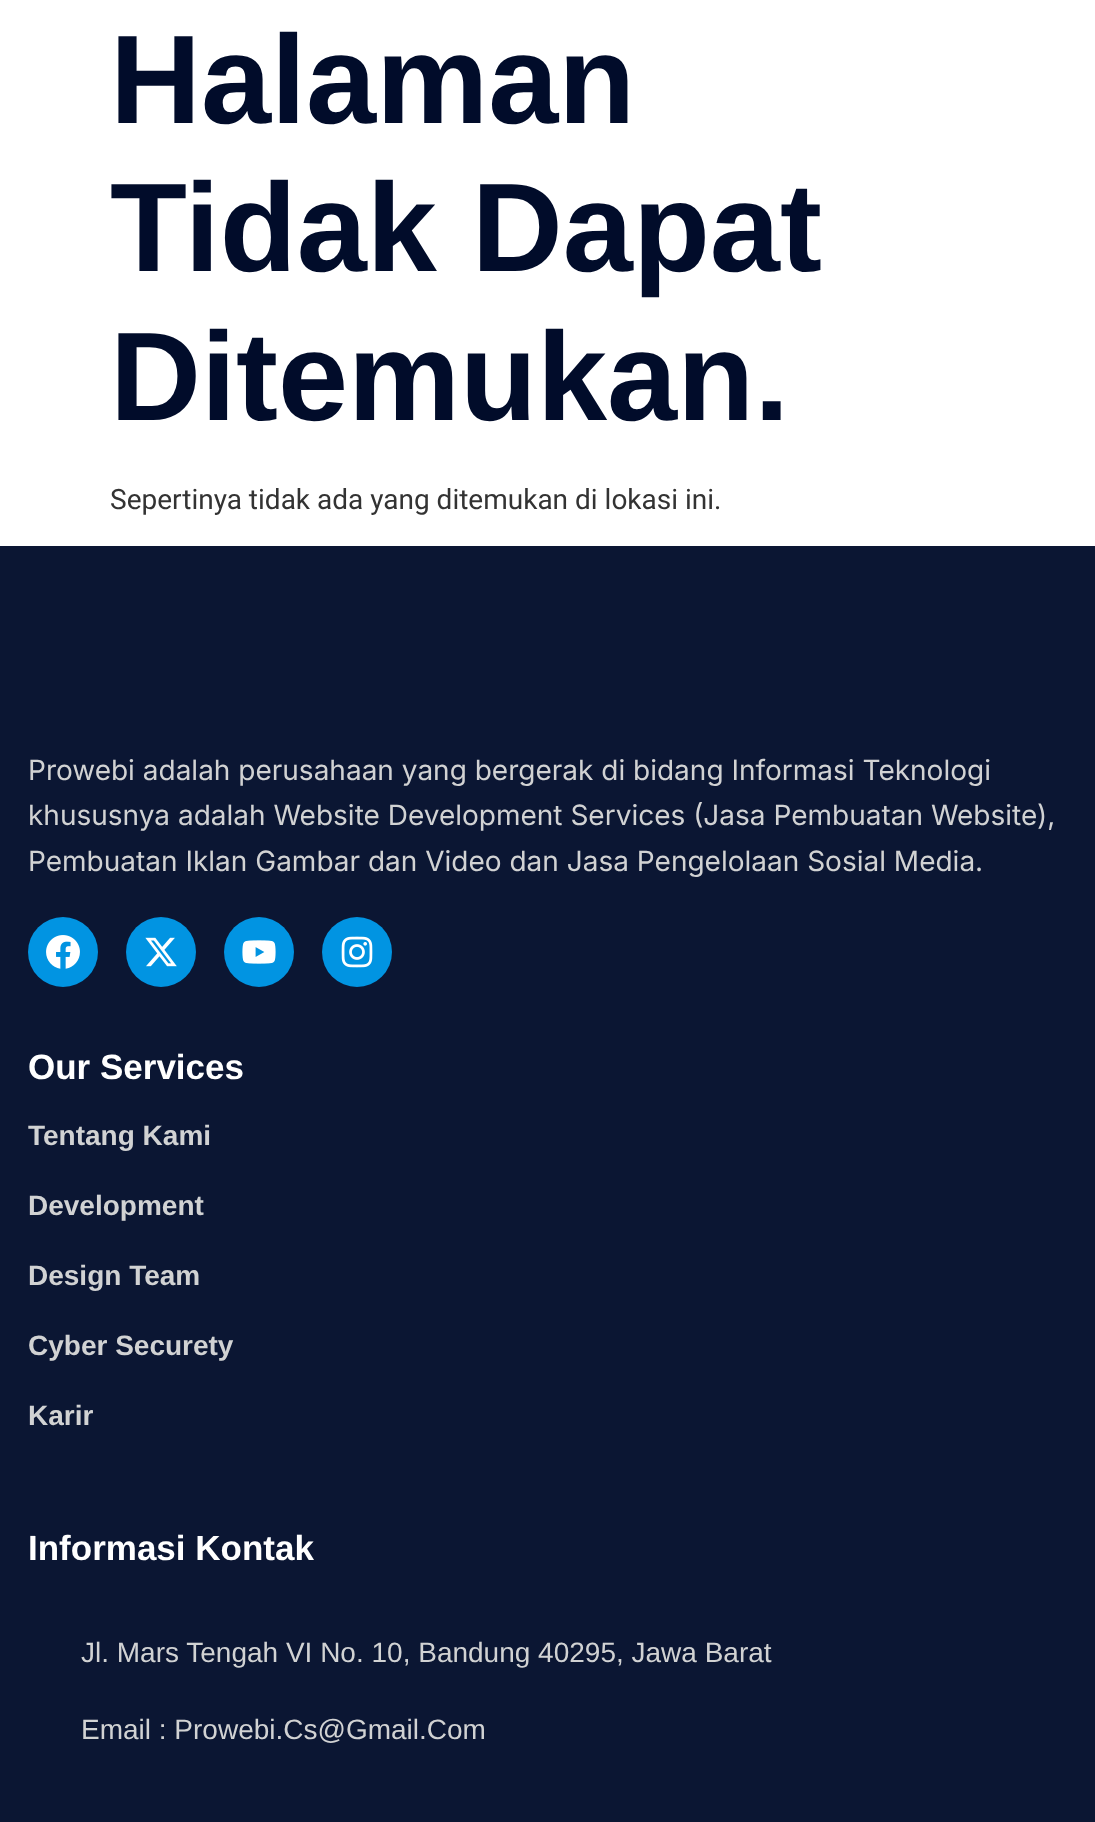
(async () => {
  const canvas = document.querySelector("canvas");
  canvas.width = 1095;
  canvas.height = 1822;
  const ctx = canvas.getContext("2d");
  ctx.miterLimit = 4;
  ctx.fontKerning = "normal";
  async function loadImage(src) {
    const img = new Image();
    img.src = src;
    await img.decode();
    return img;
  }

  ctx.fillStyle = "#ffffff";
  ctx.fillRect(0, 0, 1095, 1822);
  ctx.fillStyle = "#0b1633";
  ctx.fillRect(0, 546, 1095, 1276);
  ctx.fillStyle = "#0194e2";
  ctx.beginPath();
  ctx.arc(63, 952, 35, 0, Math.PI * 2);
  ctx.fill();
  ctx.drawImage(await loadImage("img/1.png"), 46, 935, 34, 34);
  ctx.beginPath();
  ctx.arc(161, 952, 35, 0, Math.PI * 2);
  ctx.fill();
  ctx.drawImage(await loadImage("img/2.png"), 145, 937, 32, 30);
  ctx.beginPath();
  ctx.arc(259, 952, 35, 0, Math.PI * 2);
  ctx.fill();
  ctx.drawImage(await loadImage("img/3.png"), 242, 940, 34, 24);
  ctx.beginPath();
  ctx.arc(357, 952, 35, 0, Math.PI * 2);
  ctx.fill();
  ctx.drawImage(await loadImage("img/4.png"), 341, 936, 32, 32);
  ctx.font = "bold 126px Liberation Sans";
  ctx.fillStyle = "#010c2a";
  for (const [text, x, y] of [
    ["Halaman", 110, 123],
    ["Tidak Dapat", 110, 271],
    ["Ditemukan.", 110, 420],
  ]) {
    ctx.fillText(text, x, y);
  }
  ctx.font = "28px Roboto";
  ctx.fillStyle = "#333333";
  ctx.fillText("Sepertinya tidak ada yang ditemukan di lokasi ini.", 110, 509);
  ctx.font = "28px Inter";
  ctx.fillStyle = "#d1d2d3";
  for (const [text, x, y] of [
    ["Prowebi adalah perusahaan yang bergerak di bidang Informasi Teknologi", 28, 780],
    ["khususnya adalah Website Development Services (Jasa Pembuatan Website),", 28, 825],
    ["Pembuatan Iklan Gambar dan Video dan Jasa Pengelolaan Sosial Media.", 28, 871],
  ]) {
    ctx.fillText(text, x, y);
  }
  ctx.font = "bold 35px Liberation Sans";
  ctx.fillStyle = "#ffffff";
  ctx.fillText("Our Services", 28, 1079);
  ctx.font = "bold 28px Liberation Sans";
  ctx.fillStyle = "#d1d2d3";
  for (const [text, x, y] of [
    ["Tentang Kami", 28, 1145],
    ["Development", 28, 1215],
    ["Design Team", 28, 1285],
    ["Cyber Securety", 28, 1355],
    ["Karir", 28, 1425],
  ]) {
    ctx.fillText(text, x, y);
  }
  ctx.font = "bold 35px Liberation Sans";
  ctx.fillStyle = "#ffffff";
  ctx.fillText("Informasi Kontak", 28, 1560);
  ctx.font = "28px Liberation Sans";
  ctx.fillStyle = "#d1d2d3";
  ctx.fillText("Jl. Mars Tengah VI No. 10, Bandung 40295, Jawa Barat", 81, 1662);
  ctx.fillText("Email : Prowebi.Cs@Gmail.Com", 81, 1739);
})();
